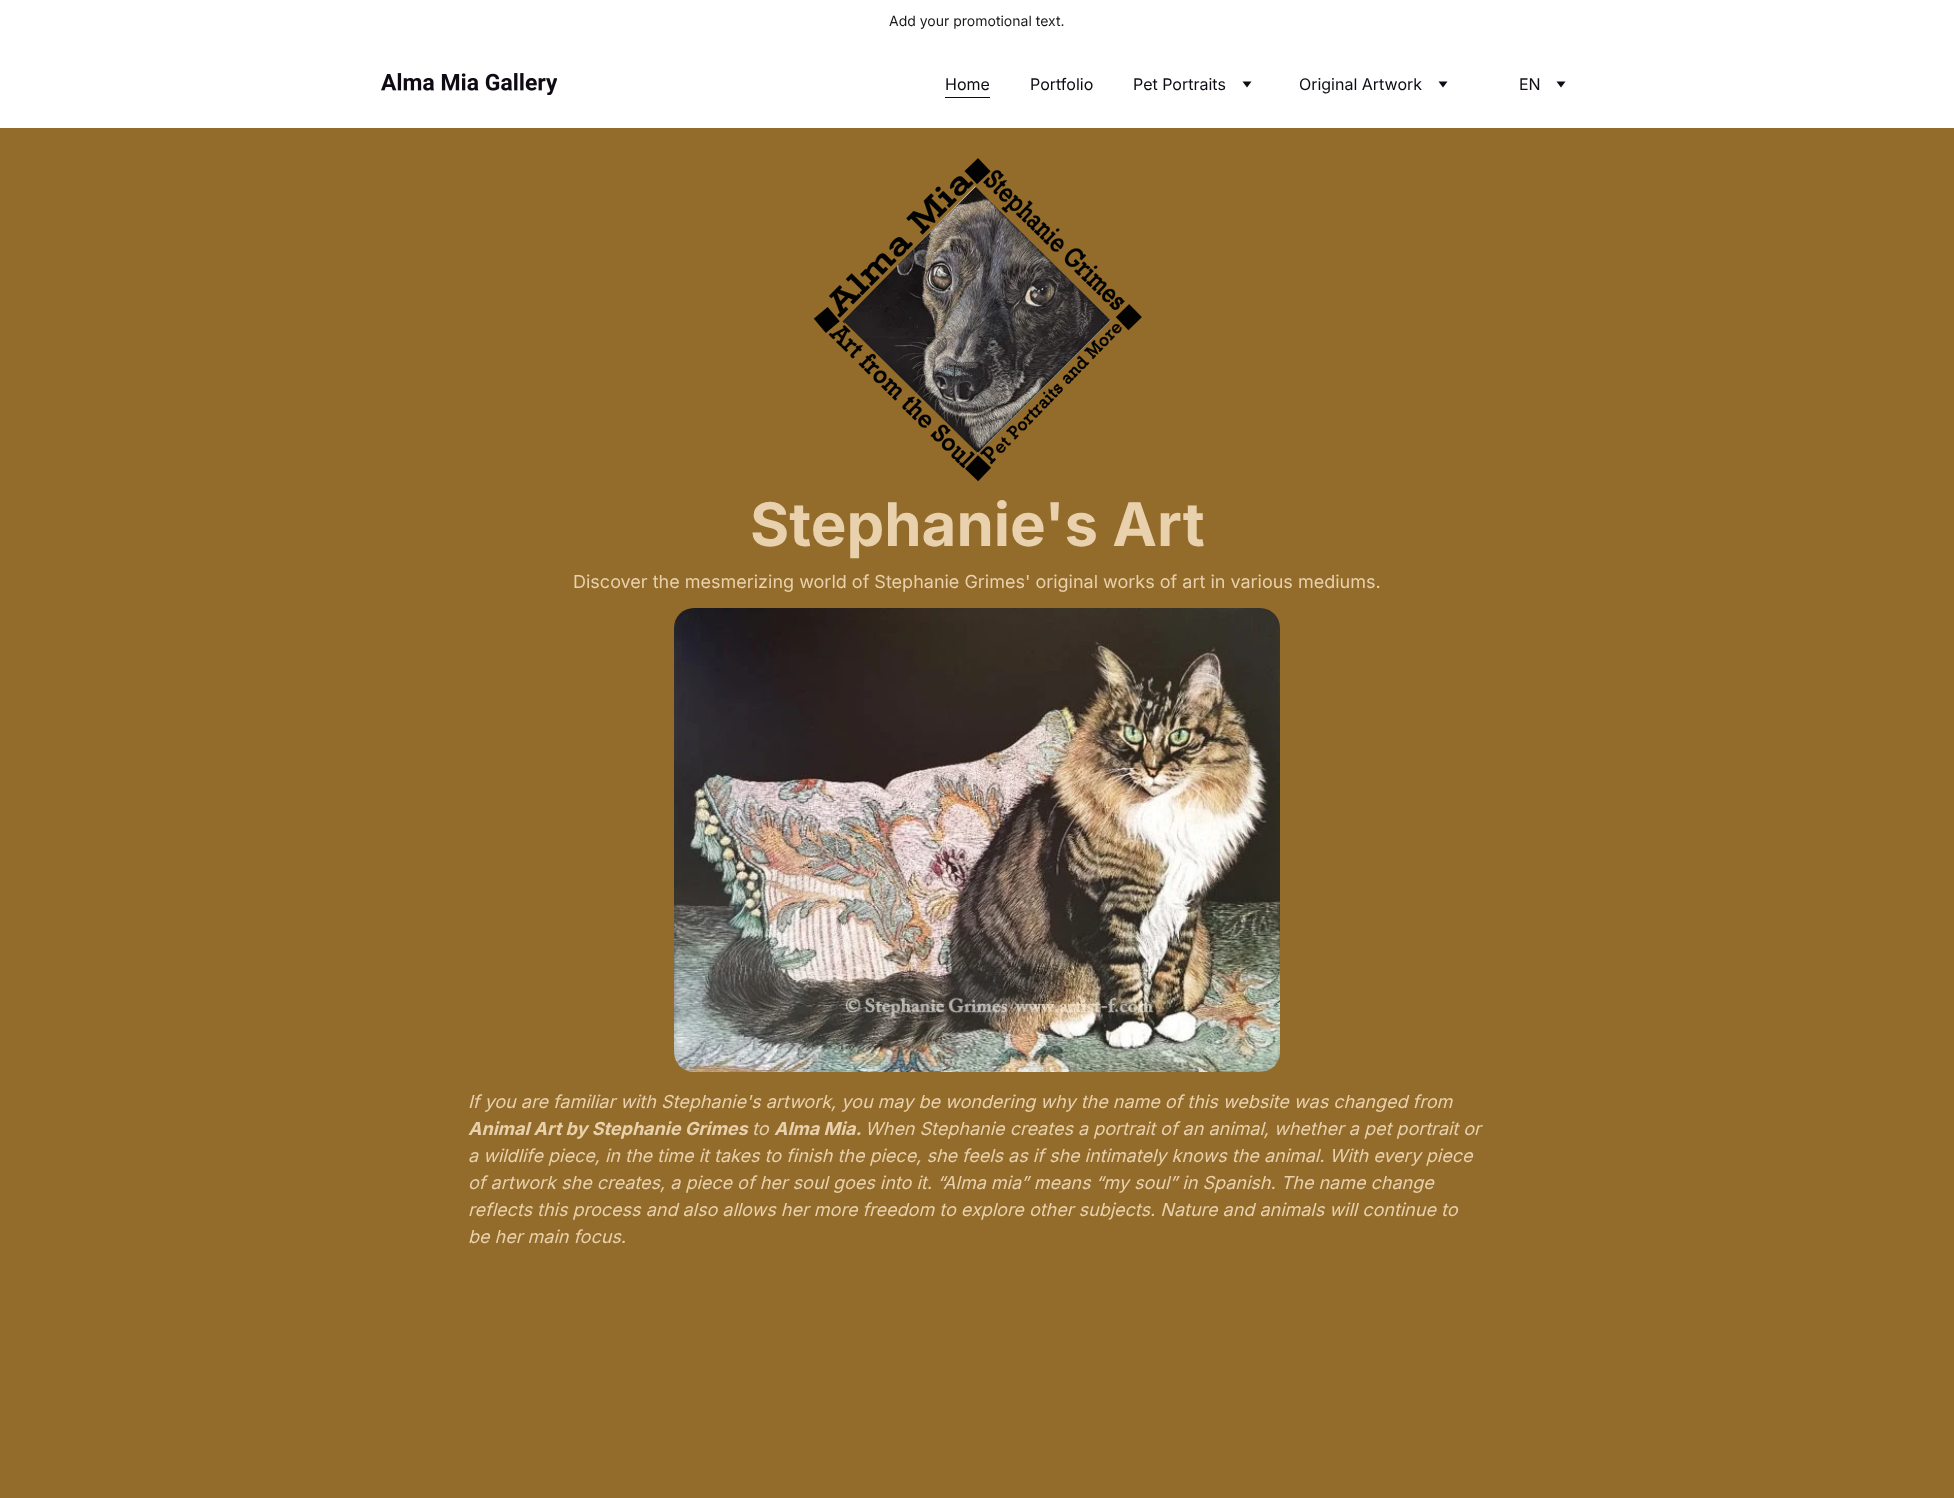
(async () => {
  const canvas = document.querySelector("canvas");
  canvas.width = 1954;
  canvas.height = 1498;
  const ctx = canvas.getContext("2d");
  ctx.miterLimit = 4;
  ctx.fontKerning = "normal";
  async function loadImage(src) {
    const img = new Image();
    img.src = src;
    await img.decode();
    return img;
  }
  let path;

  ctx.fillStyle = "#ffffff";
  ctx.fillRect(0, 0, 1954, 1498);
  ctx.drawImage(await loadImage("img/1.png"), 381, 73, 176, 22);
  ctx.fillStyle = "#0f0a14";
  ctx.fillRect(945, 97, 45, 1);
  path = new Path2D("M1247 87.5L1242.5 81.5H1251.5Z");
  ctx.fill(path);
  path = new Path2D("M1443 87.5L1438.5 81.5H1447.5Z");
  ctx.fill(path);
  path = new Path2D("M1561 87.5L1556.5 81.5H1565.5Z");
  ctx.fill(path);
  ctx.fillStyle = "#936c2b";
  ctx.fillRect(0, 128, 1954, 1370);
  ctx.drawImage(await loadImage("img/2.png"), 813, 158, 329, 324);
  ctx.drawImage(await loadImage("img/3.png"), 674, 608, 606, 464);
  ctx.font = "14px Inter";
  ctx.fillStyle = "#1a1a1a";
  ctx.fillText("Add your promotional text.", 889, 26);
  ctx.font = "16px Inter";
  ctx.fillStyle = "#0f0a14";
  for (const [text, x, y] of [
    ["Home", 945, 90],
    ["Portfolio", 1030, 90],
    ["Pet Portraits", 1133, 90],
    ["Original Artwork", 1299, 90],
    ["EN", 1519, 90],
  ]) {
    ctx.fillText(text, x, y);
  }
  ctx.font = "bold 60px Inter";
  ctx.fillStyle = "#e8d1ac";
  ctx.fillText("Stephanie's Art", 750, 546);
  ctx.font = "18px Inter";
  ctx.fillText("Discover the mesmerizing world of Stephanie Grimes' original works of art in various mediums.", 573, 588);
  ctx.font = "italic 18px Inter";
  ctx.fillText("If you are familiar with Stephanie's artwork, you may be wondering why the name of this website was changed from", 468, 1108);
  ctx.font = "italic bold 18px Inter";
  ctx.fillText("Animal Art by Stephanie Grimes", 468, 1135);
  ctx.font = "italic 18px Inter";
  ctx.fillText("to", 752, 1135);
  ctx.font = "italic bold 18px Inter";
  ctx.fillText("Alma Mia.", 774, 1135);
  ctx.font = "italic 18px Inter";
  for (const [text, x, y] of [
    ["When Stephanie creates a portrait of an animal, whether a pet portrait or", 865, 1135],
    ["a wildlife piece, in the time it takes to finish the piece, she feels as if she intimately knows the animal. With every piece", 468, 1162],
    ["of artwork she creates, a piece of her soul goes into it. “Alma mia” means “my soul” in Spanish. The name change", 468, 1189],
    ["reflects this process and also allows her more freedom to explore other subjects. Nature and animals will continue to", 468, 1216],
    ["be her main focus.", 468, 1243],
  ]) {
    ctx.fillText(text, x, y);
  }
})();
